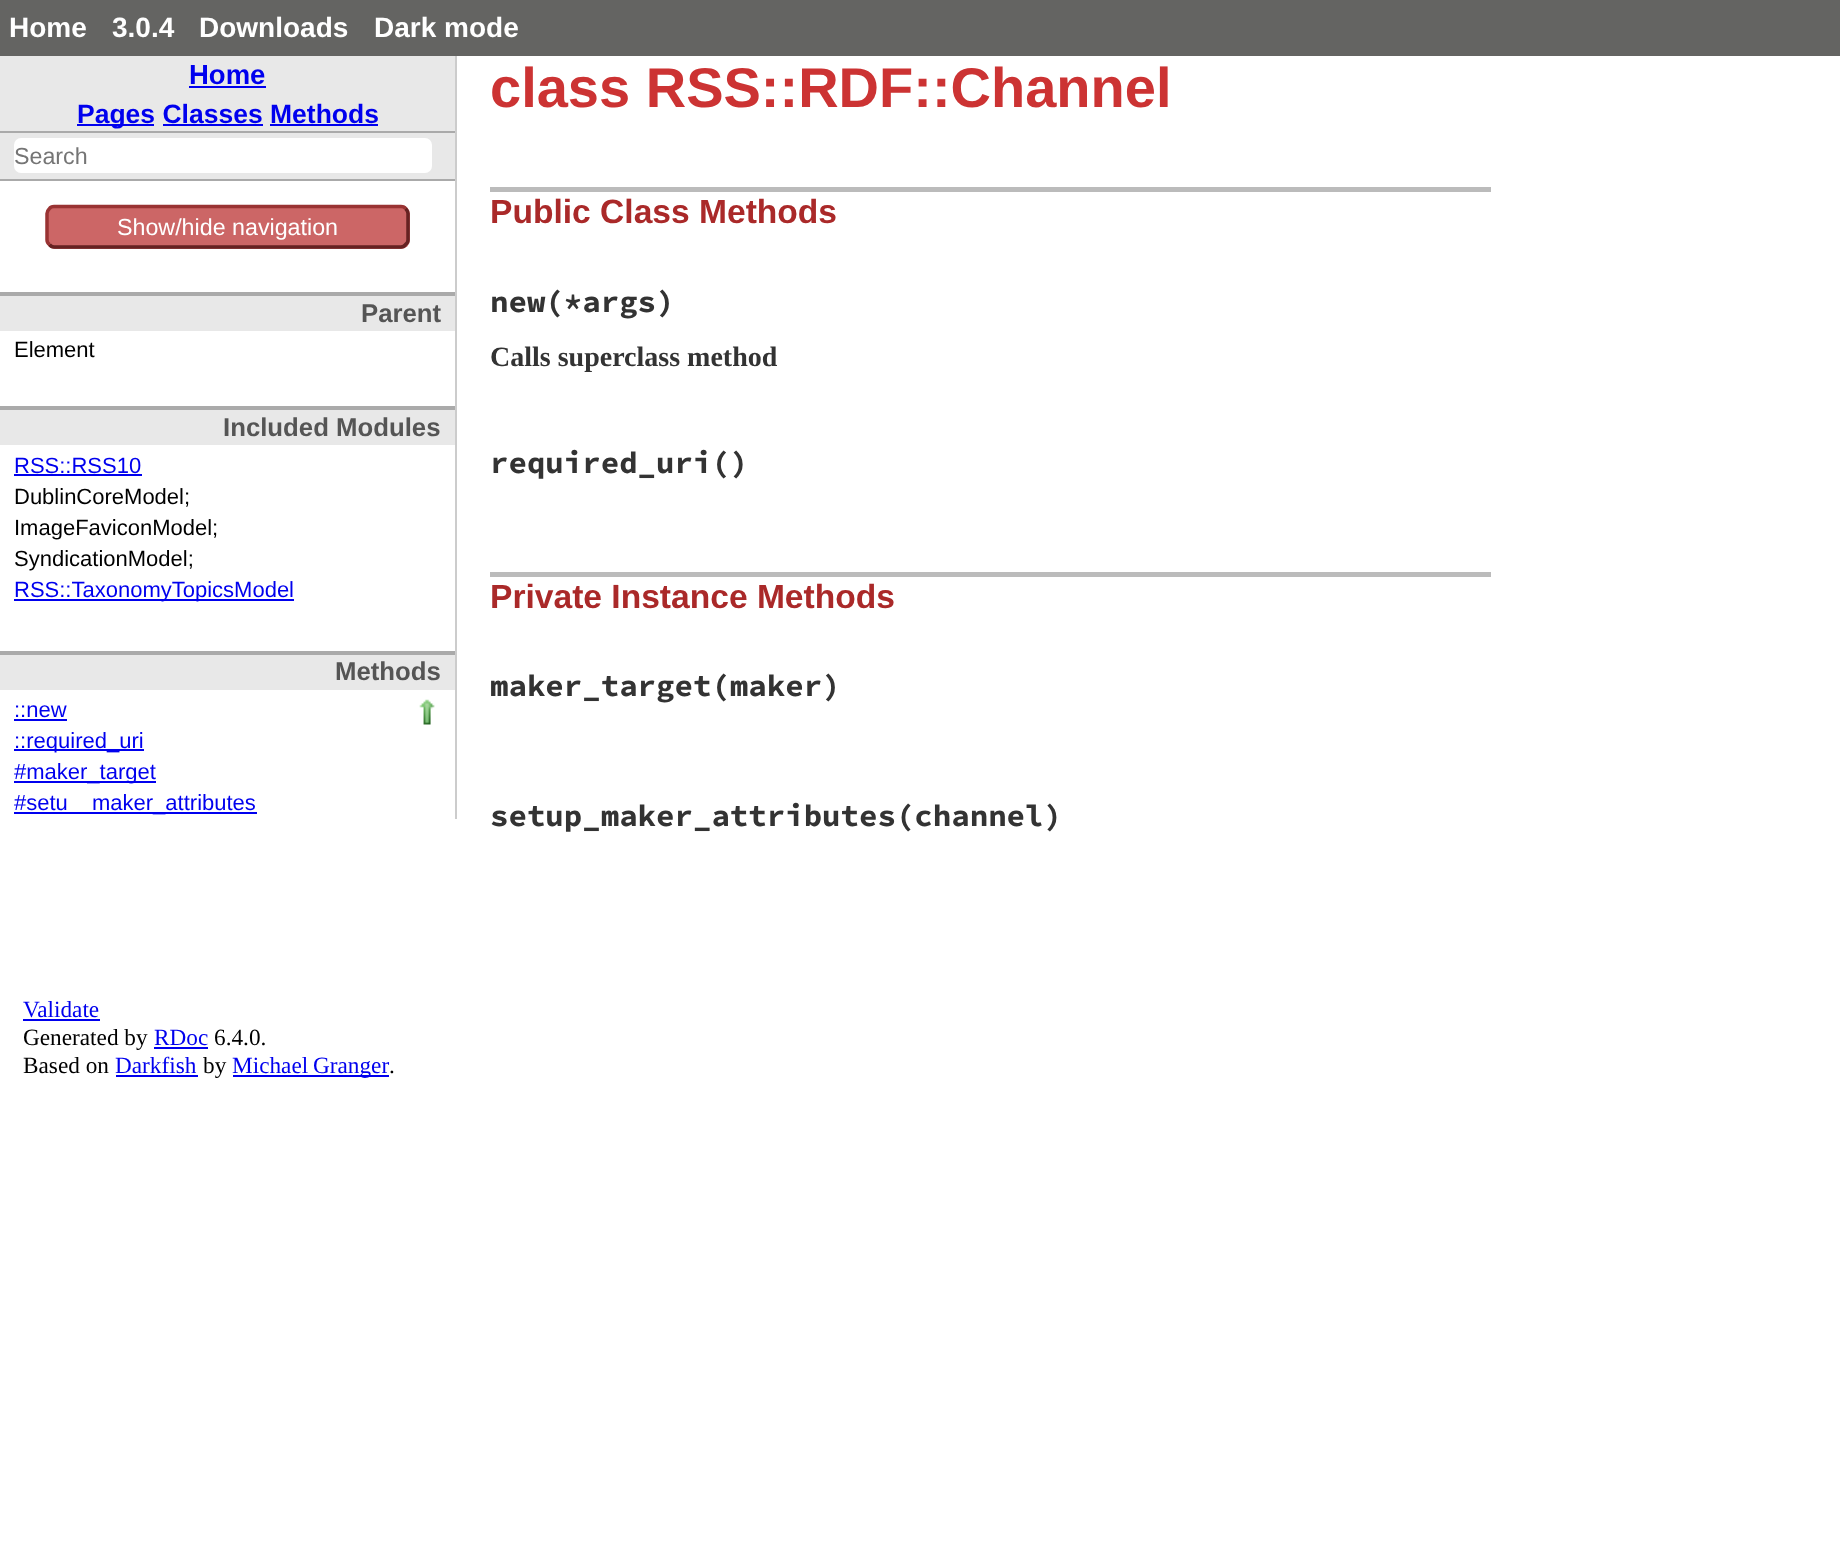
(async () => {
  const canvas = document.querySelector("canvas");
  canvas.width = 1840;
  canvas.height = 1560;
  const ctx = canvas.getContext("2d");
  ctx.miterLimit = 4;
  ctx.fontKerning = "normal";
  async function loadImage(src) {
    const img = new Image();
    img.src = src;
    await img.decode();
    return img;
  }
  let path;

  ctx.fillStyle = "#ffffff";
  ctx.fillRect(0, 0, 1840, 1560);
  for (const [x, y, w, h, color] of [
    [0, 0, 1840, 56, "#646462"],
    [455, 56, 2, 763, "#cccccc"],
    [0, 56, 455, 75, "#e8e8e8"],
    [189, 86, 77, 2, "#0000ee"],
    [77, 124, 77, 2, "#0000ee"],
    [163, 124, 100, 2, "#0000ee"],
    [270, 124, 108, 2, "#0000ee"],
    [0, 133, 455, 46, "#e8e8e8"],
    [0, 131, 455, 2, "#aaaaaa"],
    [0, 179, 455, 2, "#aaaaaa"],
  ]) {
    ctx.fillStyle = color;
    ctx.fillRect(x, y, w, h);
  }
  ctx.fillStyle = "#ffffff";
  ctx.beginPath();
  ctx.roundRect(14, 138, 418, 35, 7);
  ctx.fill();
  ctx.fillStyle = "#cc6666";
  ctx.beginPath();
  ctx.roundRect(46, 205, 364, 44, 9);
  ctx.fill();
  path = new Path2D("M405.5 208.5C407 210 408 211.5 408 213.5V240C408 241.5 407 243.5 405.5 244.5C404.5 246 402.5 247 401 247H54C52.5 247 50.5 246 49.5 244.5");
  ctx.strokeStyle = "#662222";
  ctx.lineWidth = 3.5;
  ctx.stroke(path);
  path = new Path2D("M49.5 244.5C48 243.5 47 241.5 47 240V213.5C47 211.5 48 210 49.5 208.5C50.5 207 52.5 206.5 54 206.5H401C402.5 206.5 404.5 207 405.5 208.5");
  ctx.strokeStyle = "#993333";
  ctx.stroke(path);
  for (const [x, y, w, h, color] of [
    [0, 292, 455, 4, "#aaaaaa"],
    [0, 296, 455, 35, "#e8e8e8"],
    [0, 406, 455, 4, "#aaaaaa"],
    [0, 410, 455, 35, "#e8e8e8"],
    [14, 474, 128, 2, "#0000ee"],
    [14, 599, 280, 2, "#0000ee"],
    [0, 651, 455, 4, "#aaaaaa"],
    [0, 655, 455, 35, "#e8e8e8"],
  ]) {
    ctx.fillStyle = color;
    ctx.fillRect(x, y, w, h);
  }
  ctx.drawImage(await loadImage("img/1.png"), 419, 699, 16, 26);
  for (const [x, y, w, h, color] of [
    [14, 719, 53, 2, "#0000ee"],
    [14, 749, 130, 2, "#0000ee"],
    [14, 781, 142, 2, "#0000ee"],
    [14, 812, 243, 2, "#0000ee"],
    [490, 187, 1001, 5, "#bbbbbb"],
    [490, 572, 1001, 5, "#bbbbbb"],
    [23, 1019, 77, 2, "#0000ee"],
    [154, 1047, 54, 2, "#0000ee"],
    [116, 1075, 82, 2, "#0000ee"],
    [233, 1075, 156, 2, "#0000ee"],
  ]) {
    ctx.fillStyle = color;
    ctx.fillRect(x, y, w, h);
  }
  ctx.font = "bold 28px Liberation Sans";
  ctx.fillStyle = "#ffffff";
  for (const [text, x, y] of [
    ["Home", 9, 37],
    ["3.0.4", 112, 37],
    ["Downloads", 199, 37],
    ["Dark mode", 374, 37],
  ]) {
    ctx.fillText(text, x, y);
  }
  ctx.font = "bold 27.5px Liberation Sans";
  ctx.fillStyle = "#0000ee";
  ctx.fillText("Home", 189, 84);
  ctx.font = "bold 26.5px Liberation Sans";
  ctx.fillText("Pages Classes Methods", 77, 123);
  ctx.font = "23.25px Liberation Sans";
  ctx.fillStyle = "#757575";
  ctx.fillText("Search", 14, 164);
  ctx.fillStyle = "#ffffff";
  ctx.fillText("Show/hide navigation", 117, 235);
  ctx.font = "bold 25.75px Liberation Sans";
  ctx.fillStyle = "#555555";
  ctx.fillText("Parent", 361, 322);
  ctx.font = "22px Liberation Sans";
  ctx.fillStyle = "#000000";
  ctx.fillText("Element", 14, 357);
  ctx.font = "bold 25.75px Liberation Sans";
  ctx.fillStyle = "#555555";
  ctx.fillText("Included Modules", 223, 436);
  ctx.font = "22px Liberation Sans";
  ctx.fillStyle = "#0000ee";
  ctx.fillText("RSS::RSS10", 14, 473);
  ctx.fillStyle = "#000000";
  for (const [text, x, y] of [
    ["DublinCoreModel;", 14, 504],
    ["ImageFaviconModel;", 14, 535],
    ["SyndicationModel;", 14, 566],
  ]) {
    ctx.fillText(text, x, y);
  }
  ctx.fillStyle = "#0000ee";
  ctx.fillText("RSS::TaxonomyTopicsModel", 14, 597);
  ctx.font = "bold 25.75px Liberation Sans";
  ctx.fillStyle = "#555555";
  ctx.fillText("Methods", 335, 680);
  ctx.font = "22px Liberation Sans";
  ctx.fillStyle = "#0000ee";
  for (const [text, x, y] of [
    ["::new", 14, 717],
    ["::required_uri", 14, 748],
    ["#maker_target", 14, 779],
    ["#setu", 14, 810],
    ["maker_attributes", 92, 810],
  ]) {
    ctx.fillText(text, x, y);
  }
  ctx.font = "bold 56px Liberation Sans";
  ctx.fillStyle = "#cc3333";
  ctx.fillText("class RSS::RDF::Channel", 490, 107);
  ctx.font = "bold 33.6px Liberation Sans";
  ctx.fillStyle = "#aa2929";
  ctx.fillText("Public Class Methods", 490, 223);
  ctx.font = "bold 30.75px Source Code Pro";
  ctx.fillStyle = "#333333";
  ctx.fillText("new(*args)", 490, 312);
  ctx.font = "bold 28px Liberation Serif";
  ctx.fillText("Calls superclass method", 490, 366);
  ctx.font = "bold 30.75px Source Code Pro";
  ctx.fillText("required_uri()", 490, 473);
  ctx.font = "bold 33.6px Liberation Sans";
  ctx.fillStyle = "#aa2929";
  ctx.fillText("Private Instance Methods", 490, 608);
  ctx.font = "bold 30.75px Source Code Pro";
  ctx.fillStyle = "#333333";
  ctx.fillText("maker_target(maker)", 490, 696);
  ctx.fillText("setup_maker_attributes(channel)", 490, 826);
  ctx.font = "23.25px Liberation Serif";
  ctx.fillStyle = "#0000ee";
  ctx.fillText("Validate", 23, 1017);
  ctx.fillStyle = "#000000";
  ctx.fillText("Generated by", 23, 1045);
  ctx.fillStyle = "#0000ee";
  ctx.fillText("RDoc", 154, 1045);
  ctx.fillStyle = "#000000";
  ctx.fillText("6.4.0.", 214, 1045);
  ctx.fillText("Based on", 23, 1073);
  ctx.fillStyle = "#0000ee";
  ctx.fillText("Darkfish", 115, 1073);
  ctx.fillStyle = "#000000";
  ctx.fillText("by", 203, 1073);
  ctx.wordSpacing = "-1px";
  ctx.fillStyle = "#0000ee";
  ctx.fillText("Michael Granger", 232, 1073);
  ctx.wordSpacing = "0px";
  ctx.fillStyle = "#000000";
  ctx.fillText(".", 389, 1073);
})();
